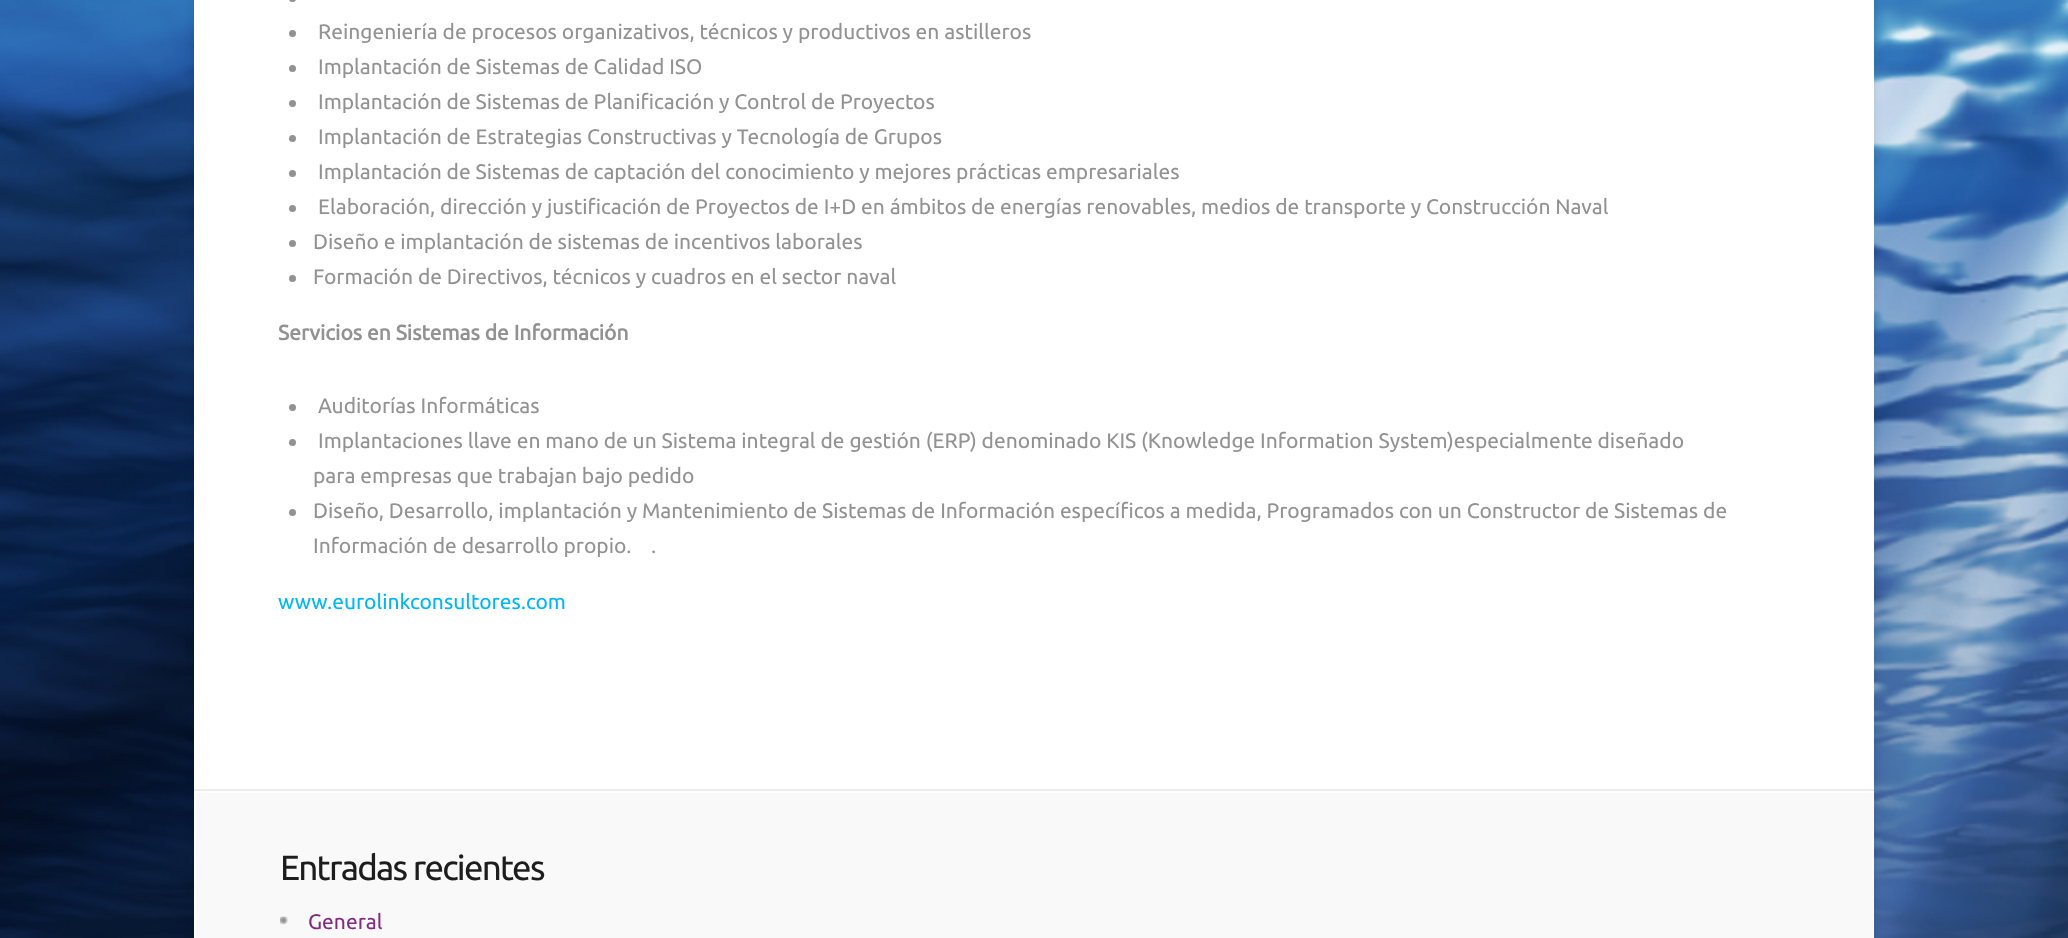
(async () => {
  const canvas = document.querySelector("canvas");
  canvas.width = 2068;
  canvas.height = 938;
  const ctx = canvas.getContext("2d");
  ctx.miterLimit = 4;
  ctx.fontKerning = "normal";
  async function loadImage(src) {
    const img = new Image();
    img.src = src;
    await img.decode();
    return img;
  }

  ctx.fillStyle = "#ffffff";
  ctx.fillRect(0, 0, 2068, 938);
  ctx.drawImage(await loadImage("img/1.png"), 0, 0, 2068, 938);
  ctx.fillStyle = "rgba(0, 0, 0, 0.1)";
  ctx.filter = "blur(5px)";
  ctx.beginPath();
  ctx.roundRect(194, -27, 1680, 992, 12);
  ctx.fill();
  ctx.filter = "none";
  ctx.fillStyle = "#ffffff";
  ctx.fillRect(194, 0, 1680, 938);
  ctx.fillStyle = "#929292";
  ctx.beginPath();
  ctx.roundRect(289, -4, 7, 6, 3.5);
  ctx.fill();
  ctx.beginPath();
  ctx.arc(292.5, 33.5, 3.5, 0, Math.PI * 2);
  ctx.fill();
  ctx.beginPath();
  ctx.arc(292.5, 68.5, 3.5, 0, Math.PI * 2);
  ctx.fill();
  ctx.beginPath();
  ctx.arc(292.5, 103.5, 3.5, 0, Math.PI * 2);
  ctx.fill();
  ctx.beginPath();
  ctx.arc(292.5, 138.5, 3.5, 0, Math.PI * 2);
  ctx.fill();
  ctx.beginPath();
  ctx.arc(292.5, 173.5, 3.5, 0, Math.PI * 2);
  ctx.fill();
  ctx.beginPath();
  ctx.arc(292.5, 208.5, 3.5, 0, Math.PI * 2);
  ctx.fill();
  ctx.beginPath();
  ctx.arc(292.5, 243.5, 3.5, 0, Math.PI * 2);
  ctx.fill();
  ctx.beginPath();
  ctx.arc(292.5, 278.5, 3.5, 0, Math.PI * 2);
  ctx.fill();
  ctx.beginPath();
  ctx.arc(292.5, 407.5, 3.5, 0, Math.PI * 2);
  ctx.fill();
  ctx.beginPath();
  ctx.arc(292.5, 442.5, 3.5, 0, Math.PI * 2);
  ctx.fill();
  ctx.beginPath();
  ctx.arc(292.5, 512.5, 3.5, 0, Math.PI * 2);
  ctx.fill();
  ctx.fillStyle = "#ececec";
  ctx.fillRect(194, 789, 1680, 2);
  ctx.fillStyle = "#f9f9f9";
  ctx.fillRect(196, 793, 1677, 145);
  ctx.drawImage(await loadImage("img/2.png"), 280, 916, 8, 9);
  ctx.font = "21px Ubuntu";
  ctx.fillStyle = "#929292";
  for (const [text, x, y] of [
    ["Reingeniería de procesos organizativos, técnicos y productivos en astilleros", 318, 39],
    ["Implantación de Sistemas de Calidad ISO", 318, 74],
    ["Implantación de Sistemas de Planificación y Control de Proyectos", 318, 109],
    ["Implantación de Estrategias Constructivas y Tecnología de Grupos", 318, 144],
    ["Implantación de Sistemas de captación del conocimiento y mejores prácticas empresariales", 318, 179],
    ["Elaboración, dirección y justificación de Proyectos de I+D en ámbitos de energías renovables, medios de transporte y Construcción Naval", 318, 214],
    ["Diseño e implantación de sistemas de incentivos laborales", 313, 249],
    ["Formación de Directivos, técnicos y cuadros en el sector naval", 313, 284],
  ]) {
    ctx.fillText(text, x, y);
  }
  ctx.font = "bold 21px Ubuntu";
  ctx.fillText("Servicios en Sistemas de Información", 278, 340);
  ctx.font = "21px Ubuntu";
  for (const [text, x, y] of [
    ["Auditorías Informáticas", 318, 413],
    ["Implantaciones llave en mano de un Sistema integral de gestión (ERP) denominado KIS (Knowledge Information System)especialmente diseñado", 318, 448],
    ["para empresas que trabajan bajo pedido", 313, 483],
    ["Diseño, Desarrollo, implantación y Mantenimiento de Sistemas de Información específicos a medida, Programados con un Constructor de Sistemas de", 313, 518],
    ["Información de desarrollo propio.    .", 313, 553],
  ]) {
    ctx.fillText(text, x, y);
  }
  ctx.fillStyle = "#00b7f3";
  ctx.fillText("www.eurolinkconsultores.com", 278, 609);
  ctx.letterSpacing = "-1.75px";
  ctx.font = "35px Ubuntu";
  ctx.fillStyle = "#1d1d1d";
  ctx.fillText("Entradas recientes", 280, 880);
  ctx.letterSpacing = "0px";
  ctx.font = "21px Ubuntu";
  ctx.fillStyle = "#822b82";
  ctx.fillText("General", 308, 929);
})();
